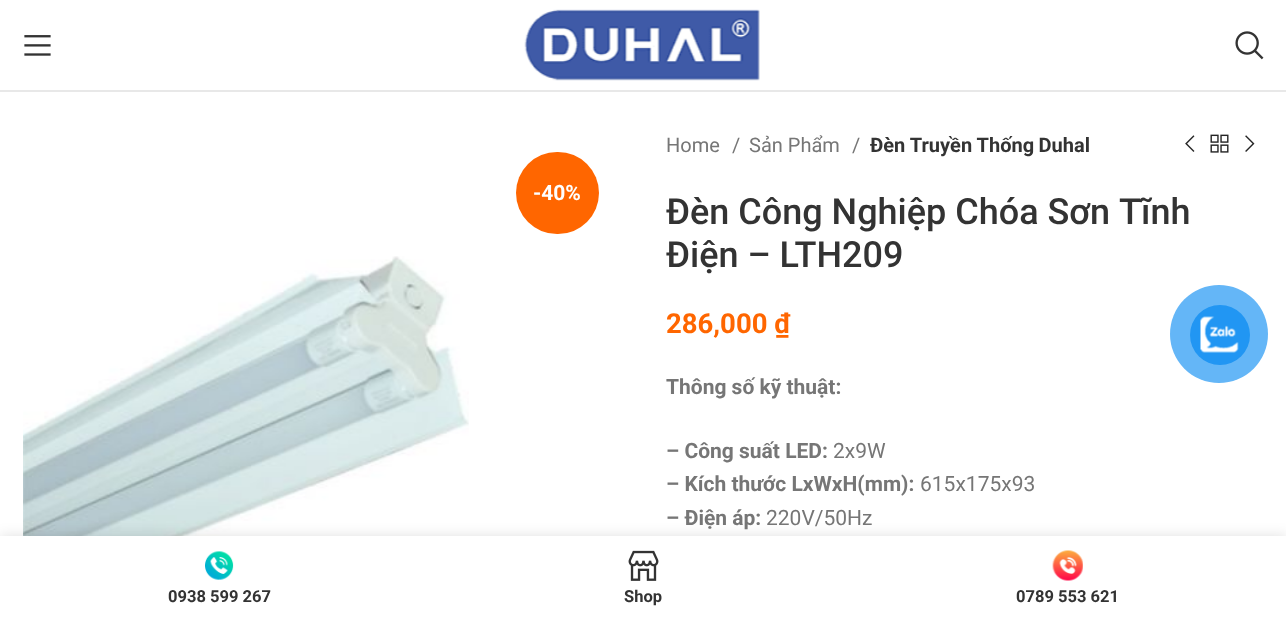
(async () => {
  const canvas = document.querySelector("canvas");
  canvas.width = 1286;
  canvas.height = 617;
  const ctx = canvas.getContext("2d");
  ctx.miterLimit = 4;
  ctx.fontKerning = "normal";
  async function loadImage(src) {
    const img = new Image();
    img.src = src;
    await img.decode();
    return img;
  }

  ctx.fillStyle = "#ffffff";
  ctx.fillRect(0, 0, 1286, 617);
  ctx.fillStyle = "#e8e8e8";
  ctx.fillRect(0, 90, 1286, 2);
  ctx.drawImage(await loadImage("img/1.png"), 24, 35, 27, 21);
  ctx.drawImage(await loadImage("img/2.png"), 524, 9, 236, 72);
  ctx.drawImage(await loadImage("img/3.png"), 1235, 31, 29, 29);
  ctx.fillStyle = "#ff6600";
  ctx.beginPath();
  ctx.roundRect(516, 152, 83, 82, 41);
  ctx.fill();
  ctx.drawImage(await loadImage("img/4.png"), 23, 256, 446, 280);
  ctx.drawImage(await loadImage("img/5.png"), 1185, 135, 10, 17);
  ctx.drawImage(await loadImage("img/6.png"), 1210, 134, 19, 19);
  ctx.drawImage(await loadImage("img/7.png"), 1245, 135, 10, 17);
  ctx.fillStyle = "#64b6f7";
  ctx.beginPath();
  ctx.arc(1219, 334, 49, 0, Math.PI * 2);
  ctx.fill();
  ctx.fillStyle = "#2196f3";
  ctx.beginPath();
  ctx.arc(1220, 335, 30, 0, Math.PI * 2);
  ctx.fill();
  ctx.drawImage(await loadImage("img/8.png"), 1200, 316, 39, 37);
  ctx.fillStyle = "rgba(0, 0, 0, 0.12)";
  ctx.filter = "blur(7px)";
  ctx.beginPath();
  ctx.rect(0, 536, 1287, 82);
  ctx.fill();
  ctx.filter = "none";
  ctx.fillStyle = "#ffffff";
  ctx.fillRect(0, 536, 1286, 81);
  ctx.drawImage(await loadImage("img/9.png"), 205, 551, 29, 29);
  ctx.drawImage(await loadImage("img/10.png"), 628, 550, 31, 31);
  ctx.drawImage(await loadImage("img/11.png"), 1052, 550, 31, 31);
  ctx.font = "bold 21px Roboto";
  ctx.fillText("-40%", 533, 200);
  ctx.font = "20px Roboto";
  ctx.fillStyle = "#767676";
  for (const [text, x, y] of [
    ["Home", 666, 152],
    ["/", 732, 152],
    ["Sản Phẩm", 749, 152],
    ["/", 852, 152],
  ]) {
    ctx.fillText(text, x, y);
  }
  ctx.wordSpacing = "-0.5px";
  ctx.font = "bold 20px Roboto";
  ctx.fillStyle = "#333333";
  ctx.fillText("Đèn Truyền Thống Duhal", 870, 152);
  ctx.wordSpacing = "0px";
  ctx.font = "500 36px Roboto";
  ctx.fillText("Đèn Công Nghiệp Chóa Sơn Tĩnh", 666, 224);
  ctx.fillText("Điện – LTH209", 666, 267);
  ctx.font = "bold 27.5px Roboto";
  ctx.fillStyle = "#ff6600";
  ctx.fillText("286,000 ₫", 666, 333);
  ctx.font = "bold 21px Roboto";
  ctx.fillStyle = "#767676";
  ctx.fillText("Thông số kỹ thuật:", 666, 394);
  ctx.fillText("– Công suất LED:", 666, 458);
  ctx.font = "21px Roboto";
  ctx.fillText("2x9W", 833, 458);
  ctx.font = "bold 21px Roboto";
  ctx.fillText("– Kích thước LxWxH(mm):", 666, 491);
  ctx.font = "21px Roboto";
  ctx.fillText("615x175x93", 920, 491);
  ctx.font = "bold 21px Roboto";
  ctx.fillText("– Điện áp:", 666, 525);
  ctx.font = "21px Roboto";
  ctx.fillText("220V/50Hz", 766, 525);
  ctx.font = "bold 16.5px Roboto";
  ctx.fillStyle = "#333333";
  for (const [text, x, y] of [
    ["0938 599 267", 168, 602],
    ["Shop", 624, 602],
    ["0789 553 621", 1016, 602],
  ]) {
    ctx.fillText(text, x, y);
  }
})();
